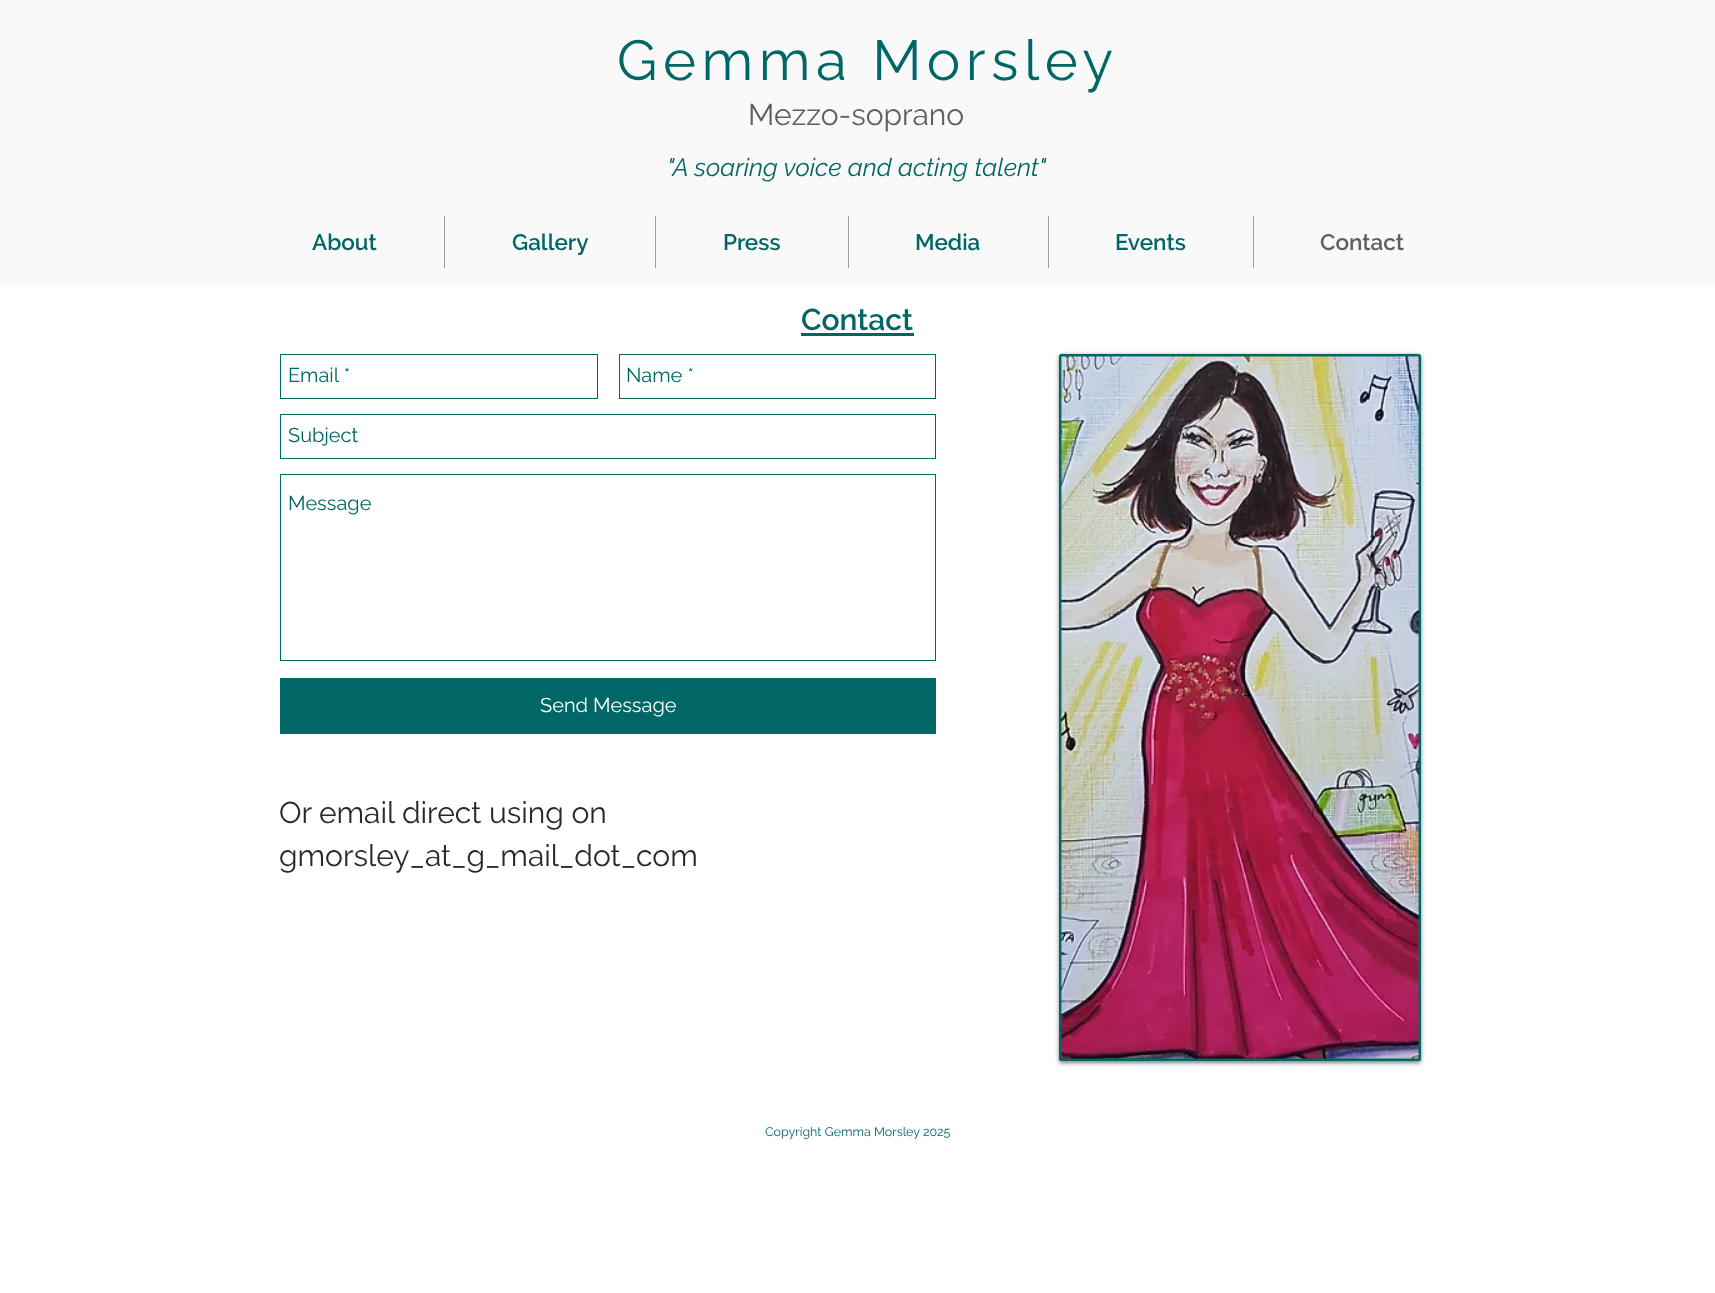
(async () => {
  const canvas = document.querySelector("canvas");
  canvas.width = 1715;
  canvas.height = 1293;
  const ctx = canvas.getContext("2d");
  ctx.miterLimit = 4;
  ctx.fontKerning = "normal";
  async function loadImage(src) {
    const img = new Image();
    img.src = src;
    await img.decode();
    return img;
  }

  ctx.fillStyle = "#ffffff";
  ctx.fillRect(0, 0, 1715, 1293);
  for (const [x, y, w, h, color] of [
    [0, 0, 1715, 285, "#f9f9f9"],
    [444, 216, 1, 52, "#a0a09f"],
    [655, 216, 1, 52, "#a0a09f"],
    [848, 216, 1, 52, "#a0a09f"],
    [1048, 216, 1, 52, "#a0a09f"],
    [1253, 216, 1, 52, "#a0a09f"],
    [801, 333, 113, 3, "#006666"],
  ]) {
    ctx.fillStyle = color;
    ctx.fillRect(x, y, w, h);
  }
  ctx.strokeStyle = "#006666";
  ctx.strokeRect(280.5, 354.5, 317, 44);
  ctx.strokeRect(619.5, 354.5, 316, 44);
  ctx.strokeRect(280.5, 414.5, 655, 44);
  ctx.strokeRect(280.5, 474.5, 655, 186);
  ctx.fillRect(280, 678, 656, 56);
  ctx.fillStyle = "rgba(0, 0, 0, 0.5)";
  ctx.filter = "blur(2px)";
  ctx.beginPath();
  ctx.roundRect(1059, 355, 362, 708, 2.5);
  ctx.fill();
  ctx.filter = "none";
  ctx.beginPath();
  ctx.roundRect(1060.5, 355.5, 359, 704, 1);
  ctx.lineWidth = 3;
  ctx.stroke();
  ctx.drawImage(await loadImage("img/1.png"), 1061, 356, 358, 703);
  ctx.letterSpacing = "5.6px";
  ctx.font = "56.25px Raleway";
  ctx.fillStyle = "#006666";
  ctx.fillText("Gemma Morsley", 617, 80);
  ctx.letterSpacing = "0px";
  ctx.font = "30px Raleway";
  ctx.fillStyle = "#605e5e";
  ctx.fillText("Mezzo-soprano", 748, 125);
  ctx.font = "italic 25px Raleway";
  ctx.fillStyle = "#006666";
  ctx.fillText("\"A soaring voice and acting talent\"", 667, 176);
  ctx.font = "600 22.5px Raleway";
  for (const [text, x, y] of [
    ["About", 312, 250],
    ["Gallery", 512, 250],
    ["Press", 723, 250],
    ["Media", 915, 250],
    ["Events", 1115, 250],
  ]) {
    ctx.fillText(text, x, y);
  }
  ctx.fillStyle = "#605e5e";
  ctx.fillText("Contact", 1320, 250);
  ctx.font = "600 30px Raleway";
  ctx.fillStyle = "#006666";
  ctx.fillText("Contact", 801, 330);
  ctx.font = "20px Raleway";
  for (const [text, x, y] of [
    ["Email *", 288, 382],
    ["Name *", 626, 382],
    ["Subject", 288, 442],
    ["Message", 288, 510],
  ]) {
    ctx.fillText(text, x, y);
  }
  ctx.fillStyle = "#ffffff";
  ctx.fillText("Send Message", 540, 712);
  ctx.font = "30px Raleway";
  ctx.fillStyle = "#292929";
  ctx.fillText("Or email direct using on", 279, 823);
  ctx.fillText("gmorsley_at_g_mail_dot_com", 279, 866);
  ctx.font = "12.5px Raleway";
  ctx.fillStyle = "#006666";
  ctx.fillText("Copyright Gemma Morsley 2025", 765, 1136);
})();
